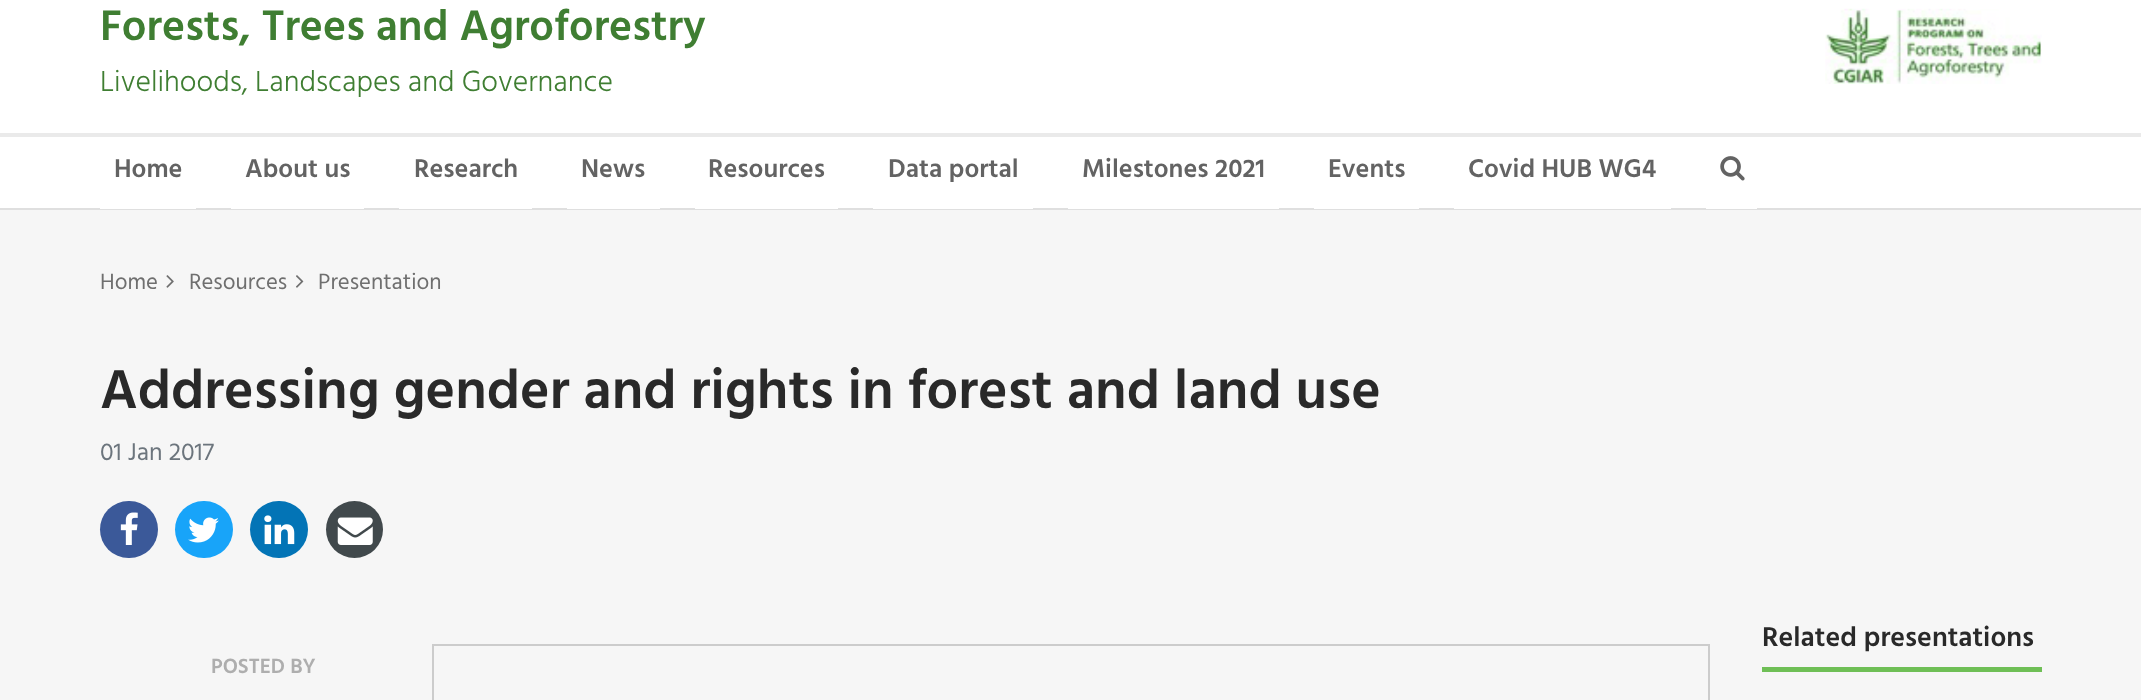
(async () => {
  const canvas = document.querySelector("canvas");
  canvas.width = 2141;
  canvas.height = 700;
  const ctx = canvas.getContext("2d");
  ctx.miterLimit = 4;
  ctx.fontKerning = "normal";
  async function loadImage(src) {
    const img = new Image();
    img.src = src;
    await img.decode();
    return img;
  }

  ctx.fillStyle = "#f6f6f6";
  ctx.fillRect(0, 0, 2141, 700);
  for (const [x, y, w, h, color] of [
    [0, 0, 2141, 208, "#ffffff"],
    [0, 208, 2141, 2, "#dfdfdf"],
    [0, 133, 2141, 4, "#eaeaea"],
  ]) {
    ctx.fillStyle = color;
    ctx.fillRect(x, y, w, h);
  }
  ctx.drawImage(await loadImage("img/1.png"), 1825, 8, 217, 76);
  for (const [x, y, w, h, color] of [
    [100, 208, 96, 1, "#ffffff"],
    [231, 208, 133, 1, "#ffffff"],
    [399, 208, 133, 1, "#ffffff"],
    [567, 208, 93, 1, "#ffffff"],
    [695, 208, 143, 1, "#ffffff"],
    [873, 208, 160, 1, "#ffffff"],
    [1068, 208, 211, 1, "#ffffff"],
    [1314, 208, 105, 1, "#ffffff"],
    [1454, 208, 217, 1, "#ffffff"],
    [1706, 208, 51, 1, "#ffffff"],
  ]) {
    ctx.fillStyle = color;
    ctx.fillRect(x, y, w, h);
  }
  ctx.drawImage(await loadImage("img/2.png"), 1720, 156, 25, 25);
  ctx.drawImage(await loadImage("img/3.png"), 166, 275, 8, 13);
  ctx.drawImage(await loadImage("img/4.png"), 296, 275, 8, 13);
  ctx.fillStyle = "#3b5999";
  ctx.beginPath();
  ctx.roundRect(100, 501, 58, 57, 28.5);
  ctx.fill();
  ctx.drawImage(await loadImage("img/5.png"), 120, 512, 18, 33);
  ctx.fillStyle = "#18a4f9";
  ctx.beginPath();
  ctx.roundRect(175, 501, 58, 57, 28.5);
  ctx.fill();
  ctx.drawImage(await loadImage("img/6.png"), 188, 517, 31, 26);
  ctx.fillStyle = "#0374b6";
  ctx.beginPath();
  ctx.roundRect(250, 501, 58, 57, 28.5);
  ctx.fill();
  ctx.drawImage(await loadImage("img/7.png"), 264, 515, 31, 30);
  ctx.fillStyle = "#41494c";
  ctx.beginPath();
  ctx.arc(354.5, 529.5, 28.5, 0, Math.PI * 2);
  ctx.fill();
  ctx.drawImage(await loadImage("img/8.png"), 337, 517, 36, 28);
  ctx.fillStyle = "#6fbf56";
  ctx.fillRect(1762, 667, 280, 5);
  ctx.strokeStyle = "#cccccc";
  ctx.lineWidth = 2;
  ctx.strokeRect(433, 645, 1276, 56);
  ctx.font = "600 43.75px Hind";
  ctx.fillStyle = "#3f7e32";
  ctx.fillText("Forests, Trees and Agroforestry", 100, 40);
  ctx.font = "300 29.75px Hind";
  ctx.fillText("Livelihoods, Landscapes and Governance", 100, 91);
  ctx.font = "600 26.25px Hind";
  ctx.fillStyle = "#636363";
  for (const [text, x, y] of [
    ["Home", 114, 177],
    ["About us", 245, 177],
    ["Research", 414, 177],
    ["News", 581, 177],
    ["Resources", 708, 177],
    ["Data portal", 888, 177],
    ["Milestones 2021", 1082, 177],
    ["Events", 1328, 177],
    ["Covid HUB WG4", 1468, 177],
  ]) {
    ctx.fillText(text, x, y);
  }
  ctx.font = "22.75px Hind";
  ctx.fillStyle = "#6f6f6f";
  for (const [text, x, y] of [
    ["Home", 100, 289],
    ["Resources", 189, 289],
    ["Presentation", 318, 289],
  ]) {
    ctx.fillText(text, x, y);
  }
  ctx.font = "600 56px Hind";
  ctx.fillStyle = "#292929";
  ctx.fillText("Addressing gender and rights in forest and land use", 100, 408);
  ctx.font = "25px Hind";
  ctx.fillStyle = "#6c757d";
  ctx.fillText("01 Jan 2017", 100, 460);
  ctx.font = "600 28px Hind";
  ctx.fillStyle = "#292929";
  ctx.fillText("Related presentations", 1762, 646);
  ctx.font = "600 21px Hind";
  ctx.fillStyle = "#aeaeae";
  ctx.fillText("POSTED BY", 211, 673);
})();
